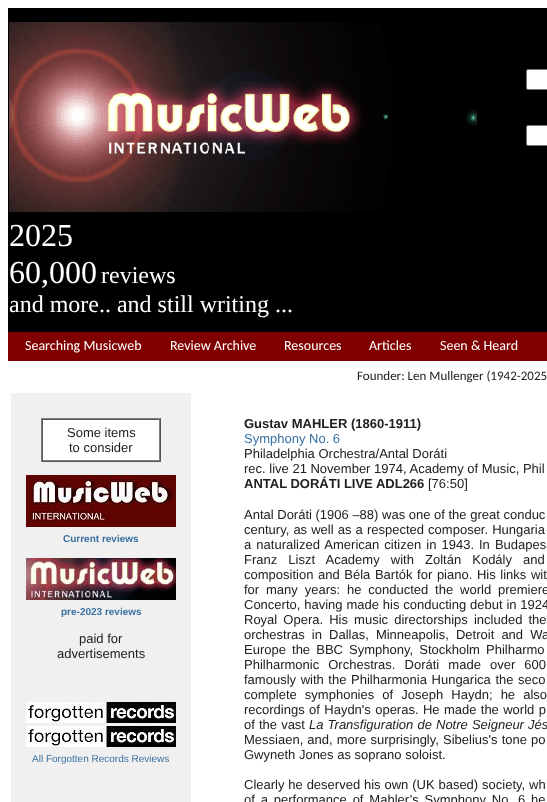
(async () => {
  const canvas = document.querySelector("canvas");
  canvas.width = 547;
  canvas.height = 802;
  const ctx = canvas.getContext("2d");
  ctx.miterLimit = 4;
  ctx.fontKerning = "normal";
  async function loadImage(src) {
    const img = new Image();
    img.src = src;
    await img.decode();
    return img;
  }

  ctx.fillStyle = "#ffffff";
  ctx.fillRect(0, 0, 547, 802);
  ctx.fillStyle = "#000000";
  ctx.fillRect(478, 8, 69, 324);
  ctx.fillStyle = "#ffffff";
  ctx.beginPath();
  ctx.roundRect(526.5, 69.5, 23, 20, 1.5);
  ctx.fill();
  ctx.strokeStyle = "#767676";
  ctx.stroke();
  ctx.beginPath();
  ctx.roundRect(526.5, 125.5, 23, 20, 1.5);
  ctx.fill();
  ctx.stroke();
  ctx.fillStyle = "#000000";
  ctx.fillRect(8, 8, 470, 324);
  ctx.drawImage(await loadImage("img/1.png"), 9, 22, 468, 190);
  for (const [x, y, w, h, color] of [
    [8, 332, 539, 29, "#800000"],
    [11, 393, 180, 409, "#f0f0f0"],
    [43, 420, 116, 40, "#ffffff"],
    [41, 418, 120, 1, "#808080"],
    [160, 418, 1, 44, "#555555"],
    [41, 461, 120, 1, "#555555"],
    [41, 418, 1, 44, "#808080"],
    [42, 419, 118, 1, "#555555"],
    [159, 419, 1, 42, "#808080"],
    [42, 460, 118, 1, "#808080"],
    [42, 419, 1, 42, "#555555"],
  ]) {
    ctx.fillStyle = color;
    ctx.fillRect(x, y, w, h);
  }
  ctx.drawImage(await loadImage("img/2.png"), 26, 475, 150, 52);
  ctx.drawImage(await loadImage("img/3.png"), 26, 558, 150, 42);
  ctx.drawImage(await loadImage("img/4.png"), 26, 702, 150, 21);
  ctx.drawImage(await loadImage("img/4.png"), 26, 726, 150, 21);
  ctx.font = "32px Liberation Serif";
  ctx.fillStyle = "#ffffff";
  ctx.fillText("2025", 9, 246);
  ctx.fillText("60,000", 9, 283);
  ctx.font = "24px Liberation Serif";
  ctx.fillText("reviews", 101, 283);
  ctx.fillText("and more.. and still writing ...", 9, 312);
  ctx.font = "14px Carlito";
  for (const [text, x, y] of [
    ["Searching Musicweb", 25, 350],
    ["Review Archive", 170, 350],
    ["Resources", 284, 350],
    ["Articles", 369, 350],
    ["Seen & Heard", 440, 350],
  ]) {
    ctx.fillText(text, x, y);
  }
  ctx.font = "13px Carlito";
  ctx.fillStyle = "#202020";
  ctx.fillText("Founder: Len Mullenger (1942-2025", 357, 380);
  ctx.font = "13px Liberation Sans";
  ctx.fillText("Some items", 67, 437);
  ctx.fillText("to consider", 69, 452);
  ctx.font = "bold 10px Liberation Sans";
  ctx.fillStyle = "#3870a2";
  ctx.fillText("Current reviews", 63, 542);
  ctx.fillText("pre-2023 reviews", 61, 615);
  ctx.font = "13px Liberation Sans";
  ctx.fillStyle = "#202020";
  ctx.fillText("paid for", 79, 643);
  ctx.fillText("advertisements", 57, 658);
  ctx.font = "10px Liberation Sans";
  ctx.fillStyle = "#3870a2";
  ctx.fillText("All Forgotten Records Reviews", 32, 762);
  ctx.font = "bold 13px Liberation Sans";
  ctx.fillStyle = "#202020";
  ctx.fillText("Gustav MAHLER (1860-1911)", 244, 428);
  ctx.font = "13px Liberation Sans";
  ctx.fillStyle = "#3870a2";
  ctx.fillText("Symphony No. 6", 244, 443);
  ctx.fillStyle = "#202020";
  ctx.fillText("Philadelphia Orchestra/Antal Doráti", 244, 458);
  ctx.fillText("rec. live 21 November 1974, Academy of Music, Phil", 244, 473);
  ctx.font = "bold 13px Liberation Sans";
  ctx.fillText("ANTAL DORÁTI LIVE ADL266", 244, 488);
  ctx.font = "13px Liberation Sans";
  ctx.fillText("[76:50]", 428, 488);
  ctx.fillText("Antal Doráti (1906 –88) was one of the great conduc", 244, 519);
  ctx.wordSpacing = "0.5px";
  ctx.fillText("century, as well as a respected composer. Hungaria", 244, 534);
  ctx.wordSpacing = "1.5px";
  ctx.fillText("a naturalized American citizen in 1943.", 244, 549);
  ctx.fillText("In Budapes", 479, 549);
  ctx.wordSpacing = "7.5px";
  ctx.fillText("Franz Liszt Academy with Zoltán Kodály and", 244, 564);
  ctx.wordSpacing = "1px";
  ctx.fillText("composition and Béla Bartók for piano. His links wit", 244, 579);
  ctx.wordSpacing = "3.25px";
  ctx.fillText("for many years: he conducted the world premiere", 244, 594);
  ctx.wordSpacing = "0.25px";
  ctx.fillText("Concerto, having made his conducting debut in 1924", 244, 609);
  ctx.wordSpacing = "2.5px";
  ctx.fillText("Royal Opera. His music directorships included the", 244, 624);
  ctx.wordSpacing = "3.5px";
  ctx.fillText("orchestras in Dallas, Minneapolis, Detroit and Wa", 244, 639);
  ctx.wordSpacing = "2.5px";
  ctx.fillText("Europe the BBC Symphony, Stockholm Philharmo", 244, 654);
  ctx.wordSpacing = "5.5px";
  ctx.fillText("Philharmonic Orchestras. Doráti made over 600", 244, 669);
  ctx.wordSpacing = "1px";
  ctx.fillText("famously with the Philharmonia Hungarica the seco", 244, 684);
  ctx.wordSpacing = "4.5px";
  ctx.fillText("complete symphonies of Joseph Haydn; he also", 244, 699);
  ctx.wordSpacing = "0.75px";
  ctx.fillText("recordings of Haydn's operas. He made the world p", 244, 714);
  ctx.wordSpacing = "0.5px";
  ctx.fillText("of the vast", 244, 729);
  ctx.font = "italic 13px Liberation Sans";
  ctx.fillText("La Transfiguration de Notre Seigneur Jés", 309, 729);
  ctx.font = "13px Liberation Sans";
  ctx.fillText("Messiaen, and, more surprisingly, Sibelius's tone po", 244, 744);
  ctx.wordSpacing = "0px";
  ctx.fillText("Gwyneth Jones as soprano soloist.", 244, 759);
  ctx.wordSpacing = "0.25px";
  ctx.fillText("Clearly he deserved his own (UK based) society, wh", 244, 789);
  ctx.wordSpacing = "2.25px";
  ctx.fillText("of a performance of Mahler’s Symphony No. 6 he", 244, 804);
})();
